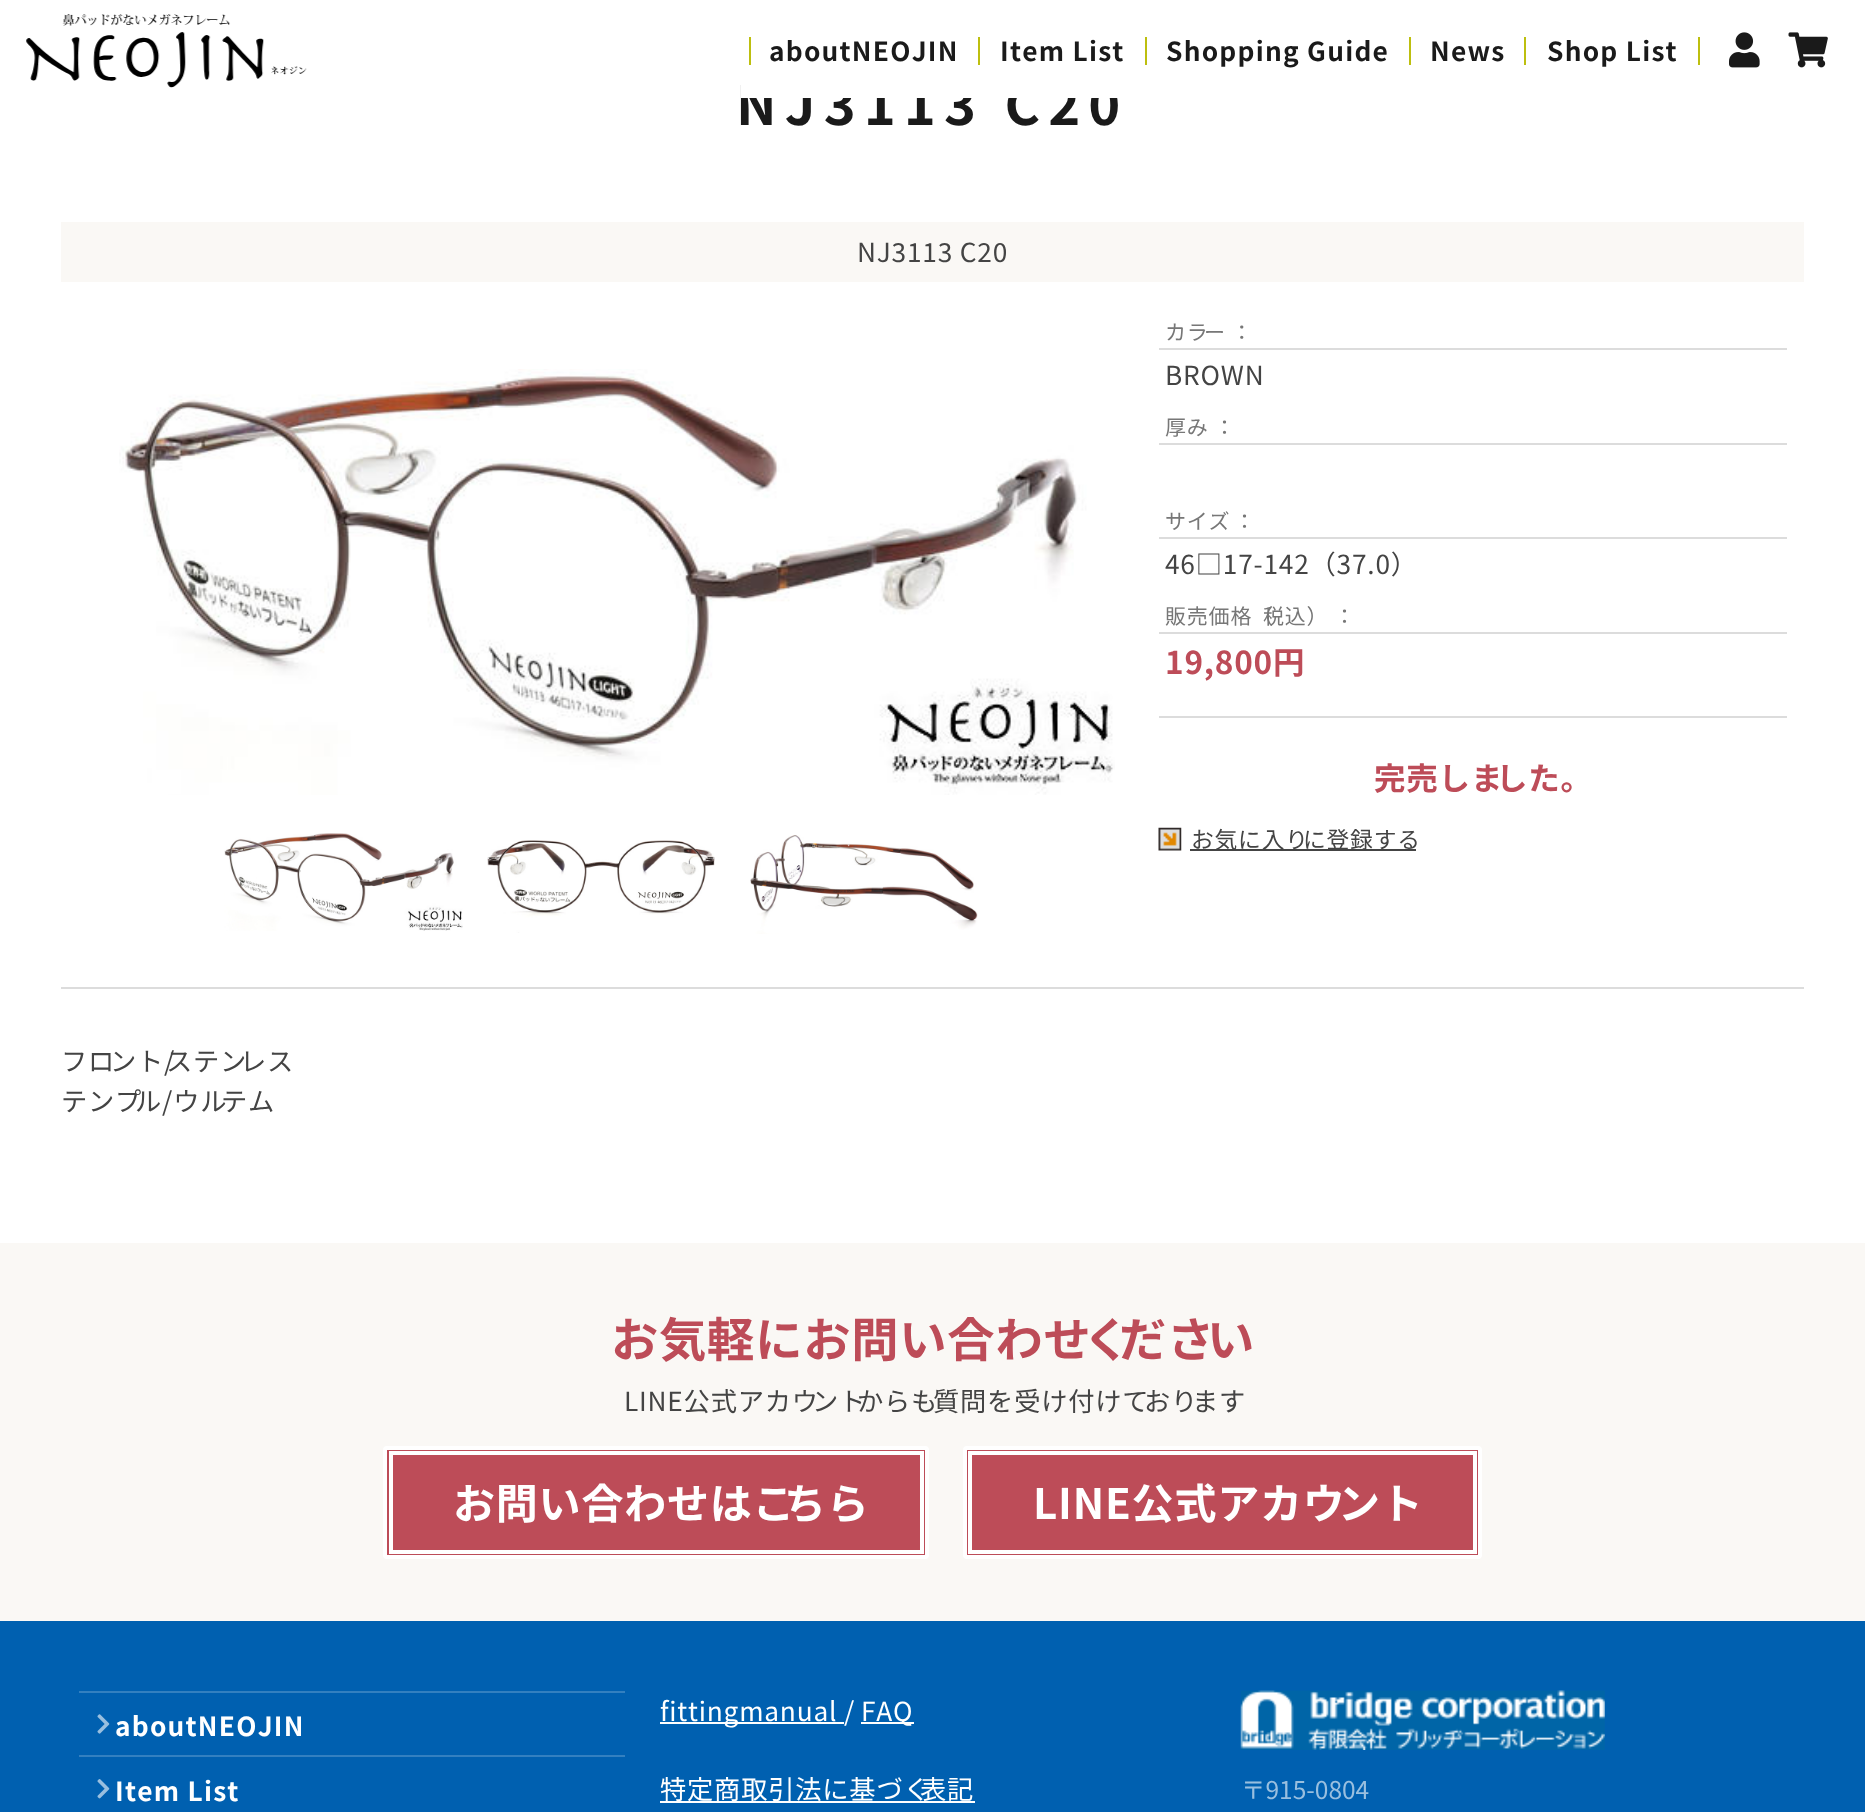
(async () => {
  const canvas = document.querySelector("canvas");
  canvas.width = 1865;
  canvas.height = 1812;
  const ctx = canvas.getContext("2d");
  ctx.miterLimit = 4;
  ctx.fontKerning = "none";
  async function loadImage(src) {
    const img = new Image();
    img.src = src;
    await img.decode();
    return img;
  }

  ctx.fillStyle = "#ffffff";
  ctx.fillRect(0, 0, 1865, 1812);
  ctx.drawImage(await loadImage("img/1.png"), 26, 14, 281, 74);
  for (const [x, y, w, h, color] of [
    [749, 37, 2, 28, "#bdbf0f"],
    [978, 37, 2, 28, "#bdbf0f"],
    [1145, 37, 2, 28, "#bdbf0f"],
    [1409, 37, 2, 28, "#bdbf0f"],
    [1524, 37, 2, 28, "#bdbf0f"],
    [1698, 37, 2, 28, "#bdbf0f"],
  ]) {
    ctx.fillStyle = color;
    ctx.fillRect(x, y, w, h);
  }
  ctx.drawImage(await loadImage("img/2.png"), 1729, 32, 31, 36);
  ctx.drawImage(await loadImage("img/3.png"), 1788, 32, 40, 36);
  ctx.fillStyle = "#faf8f5";
  ctx.fillRect(61, 222, 1743, 60);
  ctx.drawImage(await loadImage("img/4.png"), 119, 369, 996, 426);
  ctx.drawImage(await loadImage("img/5.png"), 224, 833, 239, 98);
  ctx.drawImage(await loadImage("img/6.png"), 487, 840, 228, 93);
  ctx.drawImage(await loadImage("img/7.png"), 750, 835, 228, 99);
  for (const [x, y, w, h, color] of [
    [1159, 716, 628, 2, "#dcdcdc"],
    [1159, 348, 628, 2, "#dcdcdc"],
    [1159, 443, 628, 2, "#dcdcdc"],
    [1159, 537, 628, 2, "#dcdcdc"],
    [1159, 632, 628, 2, "#dcdcdc"],
  ]) {
    ctx.fillStyle = color;
    ctx.fillRect(x, y, w, h);
  }
  ctx.drawImage(await loadImage("img/8.png"), 1158, 827, 24, 24);
  for (const [x, y, w, h, color] of [
    [1190, 849, 226, 2, "#444444"],
    [61, 987, 1743, 2, "#dcdcdc"],
    [0, 1243, 1865, 378, "#faf8f5"],
  ]) {
    ctx.fillStyle = color;
    ctx.fillRect(x, y, w, h);
  }
  ctx.fillStyle = "#bd4c58";
  ctx.beginPath();
  ctx.roundRect(385, 1448, 542, 109, 2);
  ctx.fill();
  ctx.strokeStyle = "#ffffff";
  ctx.lineWidth = 4;
  ctx.stroke();
  ctx.strokeRect(391, 1453, 531, 99);
  ctx.beginPath();
  ctx.roundRect(965, 1448, 515, 109, 2);
  ctx.fill();
  ctx.stroke();
  ctx.strokeRect(970, 1453, 505, 99);
  for (const [x, y, w, h, color] of [
    [0, 1621, 1865, 191, "#0060b0"],
    [79, 1691, 546, 2, "#3380c0"],
    [79, 1755, 546, 2, "#3380c0"],
  ]) {
    ctx.fillStyle = color;
    ctx.fillRect(x, y, w, h);
  }
  ctx.drawImage(await loadImage("img/9.png"), 97, 1714, 13, 20);
  ctx.drawImage(await loadImage("img/10.png"), 97, 1779, 13, 20);
  for (const [x, y, w, h, color] of [
    [660, 1722, 184, 2, "#ffffff"],
    [861, 1722, 53, 2, "#ffffff"],
    [660, 1801, 315, 2, "#ffffff"],
  ]) {
    ctx.fillStyle = color;
    ctx.fillRect(x, y, w, h);
  }
  ctx.drawImage(await loadImage("img/11.png"), 1240, 1690, 365, 60);
  ctx.letterSpacing = "1.25px";
  ctx.font = "bold 26.25px Noto Sans JP";
  ctx.fillStyle = "#1a1a1a";
  for (const [text, x, y] of [
    ["aboutNEOJIN", 769, 61],
    ["Item List", 1000, 61],
    ["Shopping Guide", 1166, 61],
    ["News", 1430, 61],
    ["Shop List", 1547, 61],
  ]) {
    ctx.fillText(text, x, y);
  }
  ctx.letterSpacing = "8.1px";
  ctx.font = "bold 54.25px Noto Sans JP";
  ctx.fillText("NJ3113 C20", 736, 125);
  ctx.fillStyle = "#ffffff";
  ctx.fillRect(741, 84, 377, 14);
  ctx.letterSpacing = "0.8px";
  ctx.font = "26.25px Noto Sans JP";
  ctx.fillStyle = "#444444";
  ctx.fillText("NJ3113 C20", 857, 262);
  ctx.font = "21px Noto Sans JP";
  ctx.fillStyle = "#777777";
  ctx.fillText("カラ", 1165, 340);
  ctx.fillText("ー ：", 1204, 340);
  ctx.font = "26.25px Noto Sans JP";
  ctx.fillStyle = "#444444";
  ctx.fillText("BROWN", 1165, 385);
  ctx.font = "21px Noto Sans JP";
  ctx.fillStyle = "#777777";
  ctx.fillText("厚み ：", 1165, 435);
  ctx.fillText("サイズ", 1165, 529);
  ctx.fillText("：", 1234, 529);
  ctx.font = "26.25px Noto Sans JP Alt";
  ctx.fillStyle = "#444444";
  ctx.fillText("46□17-142（37.0）", 1165, 574);
  ctx.font = "21px Noto Sans JP";
  ctx.fillStyle = "#777777";
  ctx.fillText("販売価格（", 1165, 624);
  ctx.fillText("税込） ：", 1263, 624);
  ctx.font = "bold 31.5px Noto Sans JP";
  ctx.fillStyle = "#bd4c58";
  ctx.fillText("19,800円", 1165, 674);
  ctx.fillText("完売しま", 1374, 790);
  ctx.fillText("した。", 1496, 790);
  ctx.font = "22.75px Noto Sans JP";
  ctx.fillStyle = "#444444";
  ctx.fillText("お気に入り", 1191, 848);
  ctx.fillText("に登録する", 1303, 848);
  ctx.font = "26.25px Noto Sans JP";
  ctx.fillText("フロ", 61, 1071);
  ctx.fillText("ント/", 110, 1071);
  ctx.fillText("ステン", 166, 1071);
  ctx.fillText("レス", 240, 1071);
  ctx.fillText("テンプ", 61, 1111);
  ctx.fillText("ル/ウル", 135, 1111);
  ctx.fillText("テム", 221, 1111);
  ctx.font = "bold 47.25px Noto Sans JP";
  ctx.fillStyle = "#bd4c58";
  ctx.fillText("お気軽にお問い合わせ", 611, 1357);
  ctx.fillText("く", 1083, 1357);
  ctx.fillText("ださ", 1119, 1357);
  ctx.fillText("い", 1207, 1357);
  ctx.font = "26.25px Noto Sans JP";
  ctx.fillStyle = "#444444";
  ctx.fillText("LINE公式アカウ", 624, 1411);
  ctx.fillText("ント", 812, 1411);
  ctx.fillText("からも", 857, 1411);
  ctx.fillText("質問を受け付けて", 933, 1411);
  ctx.fillText("おり", 1144, 1411);
  ctx.fillText("ます", 1192, 1411);
  ctx.font = "bold 42px Noto Sans JP";
  ctx.fillStyle = "#ffffff";
  ctx.fillText("お問い合わせはこ", 453, 1519);
  ctx.fillText("ちら", 784, 1519);
  ctx.fillText("LINE公式アカウ", 1033, 1519);
  ctx.fillText("ント", 1338, 1519);
  ctx.letterSpacing = "1.25px";
  ctx.font = "bold 26.25px Noto Sans JP";
  ctx.fillText("aboutNEOJIN", 115, 1736);
  ctx.fillText("Item List", 115, 1801);
  ctx.letterSpacing = "0.8px";
  ctx.font = "26.25px Noto Sans JP";
  for (const [text, x, y] of [
    ["fittingmanual /", 660, 1721],
    ["FAQ", 861, 1721],
    ["特定商取引法に基づく", 660, 1799],
    ["表記", 920, 1799],
  ]) {
    ctx.fillText(text, x, y);
  }
  ctx.letterSpacing = "0px";
  ctx.font = "24.5px Noto Sans JP Alt";
  ctx.fillStyle = "#99bfdf";
  ctx.fillText("〒915-0804", 1241, 1799);
})();
